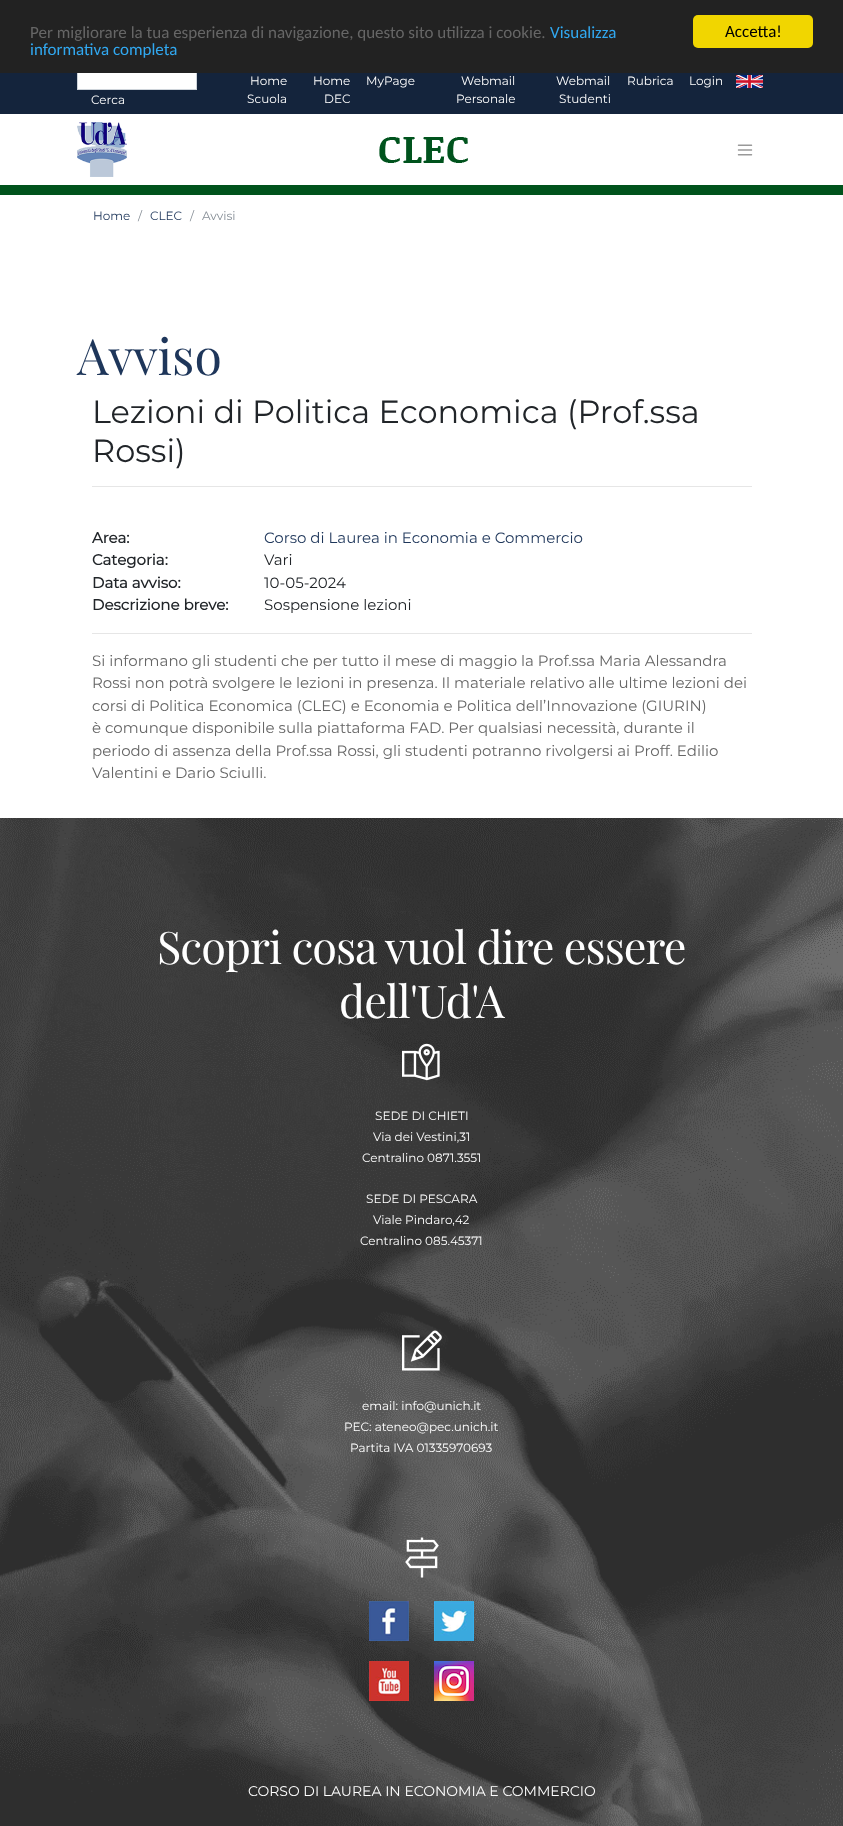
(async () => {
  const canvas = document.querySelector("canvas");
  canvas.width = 843;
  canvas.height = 1826;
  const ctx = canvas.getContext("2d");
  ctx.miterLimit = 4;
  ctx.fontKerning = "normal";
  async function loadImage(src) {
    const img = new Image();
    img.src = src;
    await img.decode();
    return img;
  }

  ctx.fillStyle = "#ffffff";
  ctx.fillRect(0, 0, 843, 1826);
  ctx.fillStyle = "#14243c";
  ctx.fillRect(0, 73, 843, 41);
  ctx.fillStyle = "#ffffff";
  ctx.fillRect(78, 73, 118, 16);
  ctx.strokeStyle = "#ced4da";
  ctx.strokeRect(77.5, 70.5, 119, 19);
  ctx.fillStyle = "#222222";
  ctx.fillRect(0, 0, 843, 73);
  ctx.fillStyle = "#f1d600";
  ctx.beginPath();
  ctx.roundRect(693, 15, 120, 33, 5);
  ctx.fill();
  ctx.drawImage(await loadImage("img/1.png"), 736, 75, 27, 13);
  ctx.fillStyle = "#00531c";
  ctx.fillRect(0, 185, 843, 10);
  ctx.drawImage(await loadImage("img/2.png"), 77, 122, 50, 55);
  ctx.drawImage(await loadImage("img/3.png"), 379, 137, 89, 26);
  ctx.drawImage(await loadImage("img/4.png"), 737, 144, 16, 12);
  ctx.fillStyle = "#e6e6e6";
  ctx.fillRect(92, 486, 660, 1);
  ctx.fillRect(92, 633, 660, 1);
  ctx.drawImage(await loadImage("img/5.png"), 0, 818, 843, 1008);
  ctx.drawImage(await loadImage("img/6.png"), 402, 1043, 38, 38);
  ctx.drawImage(await loadImage("img/7.png"), 402, 1330, 40, 41);
  ctx.drawImage(await loadImage("img/8.png"), 405, 1537, 34, 41);
  ctx.drawImage(await loadImage("img/9.png"), 369, 1601, 40, 40);
  ctx.drawImage(await loadImage("img/10.png"), 434, 1601, 40, 40);
  ctx.drawImage(await loadImage("img/11.png"), 369, 1661, 40, 40);
  ctx.drawImage(await loadImage("img/12.png"), 434, 1661, 40, 40);
  ctx.font = "17px Carlito";
  ctx.fillStyle = "#666666";
  ctx.fillText("Per migliorare la tua esperienza di navigazione, questo sito utilizza i cookie.", 30, 38);
  ctx.fillStyle = "#31a8f0";
  ctx.fillText("Visualizza", 550, 38);
  ctx.fillText("informativa completa", 30, 55);
  ctx.fillStyle = "#000000";
  ctx.fillText("Accetta!", 725, 37);
  ctx.font = "12px Montserrat";
  ctx.fillStyle = "#ffffff";
  for (const [text, x, y] of [
    ["Cerca", 91, 104],
    ["Home", 250, 85],
    ["Scuola", 247, 103],
    ["Home", 313, 85],
    ["DEC", 324, 103],
    ["MyPage", 366, 85],
    ["Webmail", 461, 85],
    ["Personale", 456, 103],
    ["Webmail", 556, 85],
    ["Studenti", 559, 103],
    ["Rubrica", 627, 85],
    ["Login", 689, 85],
  ]) {
    ctx.fillText(text, x, y);
  }
  ctx.fillStyle = "#1e365a";
  ctx.fillText("Home", 93, 220);
  ctx.fillStyle = "#868e96";
  ctx.fillText("/", 138, 220);
  ctx.fillStyle = "#1e365a";
  ctx.fillText("CLEC", 150, 220);
  ctx.fillStyle = "#868e96";
  ctx.fillText("/", 190, 220);
  ctx.fillText("Avvisi", 202, 220);
  ctx.font = "50px Playfair Display";
  ctx.fillStyle = "#1e365a";
  ctx.fillText("Avviso", 77, 375);
  ctx.font = "32px Montserrat";
  ctx.fillStyle = "#212529";
  ctx.fillText("Lezioni di Politica Economica (Prof.ssa", 92, 423);
  ctx.fillText("Rossi)", 92, 462);
  ctx.font = "bold 15px Montserrat";
  ctx.fillText("Area:", 92, 543);
  ctx.font = "15px Montserrat";
  ctx.fillStyle = "#1e365a";
  ctx.fillText("Corso di Laurea in Economia e Commercio", 264, 543);
  ctx.font = "bold 15px Montserrat";
  ctx.fillStyle = "#212529";
  ctx.fillText("Categoria:", 92, 565);
  ctx.font = "15px Montserrat";
  ctx.fillText("Vari", 264, 565);
  ctx.font = "bold 15px Montserrat";
  ctx.fillText("Data avviso:", 92, 588);
  ctx.font = "15px Montserrat";
  ctx.fillText("10-05-2024", 264, 588);
  ctx.font = "bold 15px Montserrat";
  ctx.fillText("Descrizione breve:", 92, 610);
  ctx.font = "15px Montserrat";
  ctx.fillText("Sospensione lezioni", 264, 610);
  ctx.fillStyle = "#666666";
  for (const [text, x, y] of [
    ["Si informano gli studenti che per tutto il mese di maggio la Prof.ssa Maria Alessandra", 92, 666],
    ["Rossi non potrà svolgere le lezioni in presenza. Il materiale relativo alle ultime lezioni dei", 92, 688],
    ["corsi di Politica Economica (CLEC) e Economia e Politica dell’Innovazione (GIURIN)", 92, 711],
    ["è comunque disponibile sulla piattaforma FAD. Per qualsiasi necessità, durante il", 92, 733],
    ["periodo di assenza della Prof.ssa Rossi, gli studenti potranno rivolgersi ai Proff. Edilio", 92, 756],
    ["Valentini e Dario Sciulli.", 92, 778],
  ]) {
    ctx.fillText(text, x, y);
  }
  ctx.letterSpacing = "-1px";
  ctx.font = "45px Playfair Display";
  ctx.fillStyle = "#ffffff";
  ctx.fillText("Scopri cosa vuol dire essere", 157, 964);
  ctx.fillText("dell'Ud'A", 339, 1018);
  ctx.letterSpacing = "0px";
  ctx.font = "12px Montserrat";
  for (const [text, x, y] of [
    ["SEDE DI CHIETI", 375, 1120],
    ["Via dei Vestini,31", 373, 1141],
    ["Centralino 0871.3551", 362, 1162],
    ["SEDE DI PESCARA", 366, 1203],
    ["Viale Pindaro,42", 373, 1224],
    ["Centralino 085.45371", 360, 1245],
    ["email: info@unich.it", 362, 1410],
    ["PEC: ateneo@pec.unich.it", 344, 1431],
    ["Partita IVA 01335970693", 350, 1452],
  ]) {
    ctx.fillText(text, x, y);
  }
  ctx.font = "14px Montserrat";
  ctx.fillText("CORSO DI LAUREA IN ECONOMIA E COMMERCIO", 248, 1796);
})();
